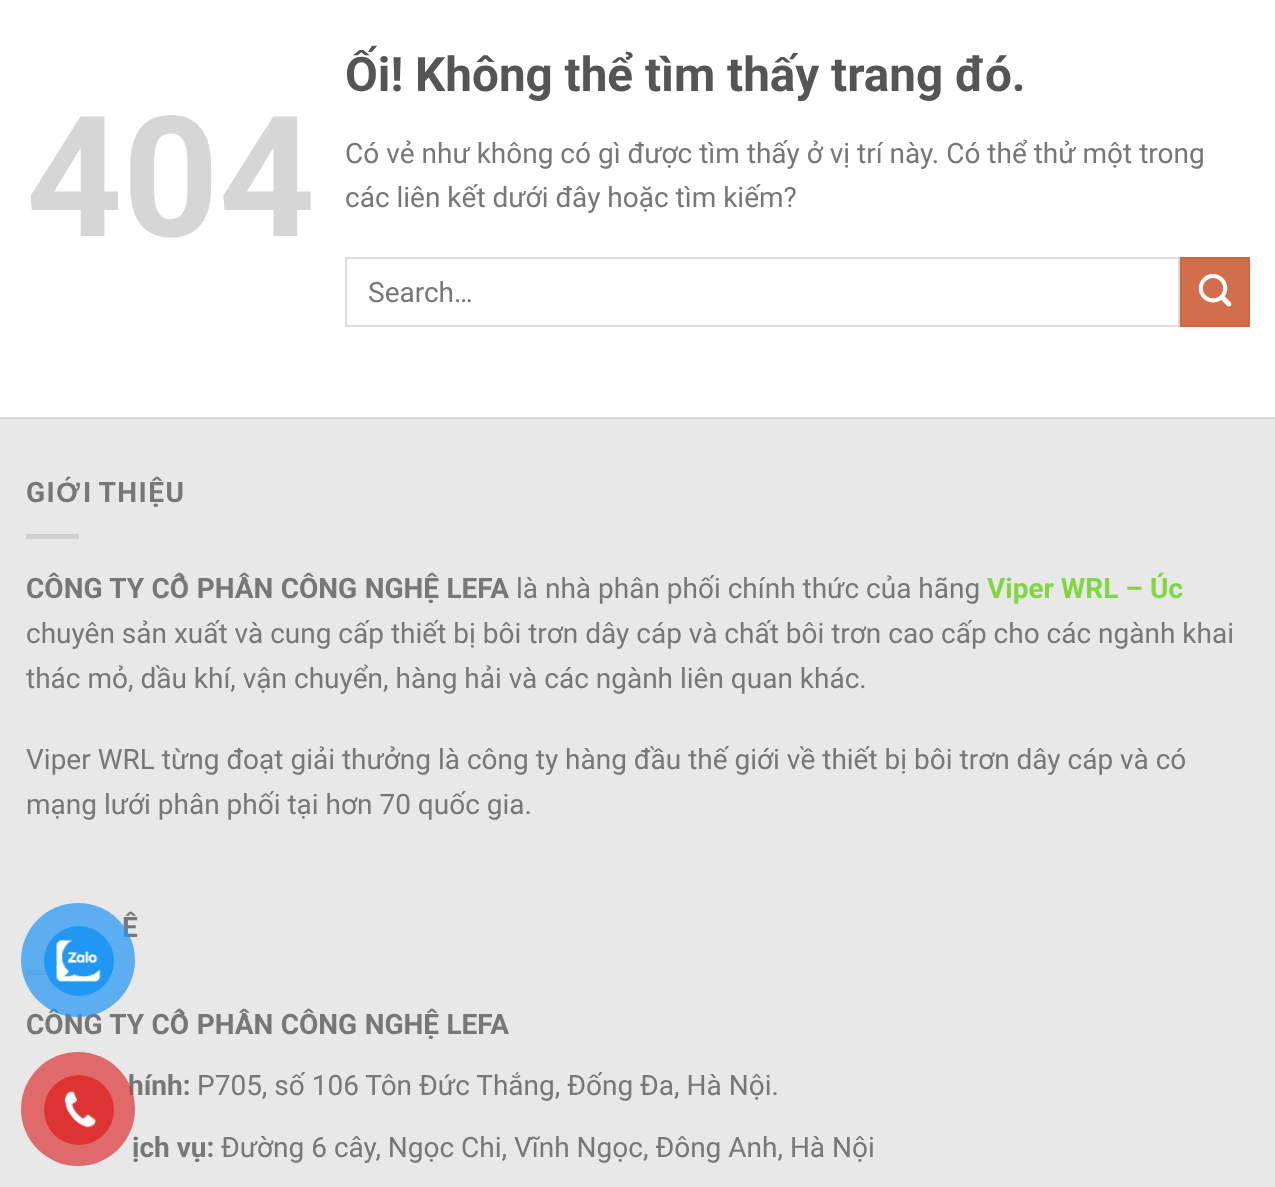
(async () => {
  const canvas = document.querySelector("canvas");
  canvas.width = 1275;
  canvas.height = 1187;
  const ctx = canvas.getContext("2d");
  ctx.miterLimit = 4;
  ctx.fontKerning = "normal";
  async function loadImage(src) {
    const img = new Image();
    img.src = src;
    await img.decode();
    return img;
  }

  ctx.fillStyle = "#ffffff";
  ctx.fillRect(0, 0, 1275, 1187);
  ctx.strokeStyle = "#dddddd";
  ctx.lineWidth = 2;
  ctx.strokeRect(346, 258, 833, 68);
  ctx.fillStyle = "#d26e4b";
  ctx.beginPath();
  ctx.rect(1181, 258, 68, 68);
  ctx.fill();
  ctx.strokeStyle = "#c86947";
  ctx.stroke();
  ctx.drawImage(await loadImage("img/1.png"), 1198, 274, 34, 33);
  for (const [x, y, w, h, color] of [
    [0, 419, 1275, 768, "#e8e8e8"],
    [0, 417, 1275, 2, "#dcdcdc"],
    [26, 534, 53, 5, "#d1d1d1"],
    [26, 970, 21, 5, "#d1d1d1"],
  ]) {
    ctx.fillStyle = color;
    ctx.fillRect(x, y, w, h);
  }
  ctx.font = "bold 168px Roboto";
  ctx.fillStyle = "#d6d6d6";
  ctx.fillText("404", 26, 236);
  ctx.font = "bold 47.6px Roboto";
  ctx.fillStyle = "#555555";
  ctx.fillText("Ối! Không thể tìm thấy trang đó.", 345, 91);
  ctx.font = "28px Roboto";
  ctx.fillStyle = "#777777";
  for (const [text, x, y] of [
    ["Có vẻ như không có gì được tìm thấy ở vị trí này. Có thể thử một trong", 345, 163],
    ["các liên kết dưới đây hoặc tìm kiếm?", 345, 207],
    ["Search…", 368, 302],
  ]) {
    ctx.fillText(text, x, y);
  }
  ctx.letterSpacing = "1.5px";
  ctx.font = "bold 28px Roboto";
  ctx.fillText("GI", 26, 502);
  ctx.font = "bold 28px Liberation Sans";
  ctx.fillText("Ớ", 56, 502);
  ctx.wordSpacing = "-2px";
  ctx.font = "bold 28px Roboto";
  ctx.fillText("I THIỆU", 83, 502);
  ctx.letterSpacing = "0px";
  ctx.wordSpacing = "0.5px";
  ctx.fillText("CÔNG TY CỔ PHẦN CÔNG NGHỆ LEFA", 26, 598);
  ctx.wordSpacing = "0px";
  ctx.font = "28px Roboto";
  ctx.fillText("là nhà phân phối chính thức của hãng", 516, 598);
  ctx.font = "bold 28px Roboto";
  ctx.fillStyle = "#81d742";
  ctx.fillText("Viper WRL – Úc", 987, 598);
  ctx.font = "28px Roboto";
  ctx.fillStyle = "#777777";
  for (const [text, x, y] of [
    ["chuyên sản xuất và cung cấp thiết bị bôi trơn dây cáp và chất bôi trơn cao cấp cho các ngành khai", 26, 643],
    ["thác mỏ, dầu khí, vận chuyển, hàng hải và các ngành liên quan khác.", 26, 688],
    ["Viper WRL từng đoạt giải thưởng là công ty hàng đầu thế giới về thiết bị bôi trơn dây cáp và có", 26, 769],
    ["mạng lưới phân phối tại hơn 70 quốc gia.", 26, 814],
  ]) {
    ctx.fillText(text, x, y);
  }
  ctx.letterSpacing = "1.5px";
  ctx.wordSpacing = "2px";
  ctx.font = "bold 28px Roboto";
  ctx.fillText("Ê", 122, 937);
  ctx.letterSpacing = "0px";
  ctx.wordSpacing = "0.5px";
  ctx.fillText("CÔNG TY CỔ PHẦN CÔNG NGHỆ LEFA", 26, 1034);
  ctx.wordSpacing = "0px";
  ctx.fillText("hính:", 128, 1095);
  ctx.font = "28px Roboto";
  ctx.fillText("P705, số 106 Tôn Đức Thắng, Đống Đa, Hà Nội.", 197, 1095);
  ctx.font = "bold 28px Roboto";
  ctx.fillText("ịch vụ:", 132, 1157);
  ctx.font = "28px Roboto";
  ctx.fillText("Đường 6 cây, Ngọc Chi, Vĩnh Ngọc, Đông Anh, Hà Nội", 221, 1157);
  ctx.fillStyle = "rgba(33, 150, 243, 0.7)";
  ctx.beginPath();
  ctx.arc(78, 960, 57, 0, Math.PI * 2);
  ctx.fill();
  ctx.fillStyle = "#2196f3";
  ctx.beginPath();
  ctx.arc(79, 961, 35, 0, Math.PI * 2);
  ctx.fill();
  ctx.drawImage(await loadImage("img/2.png"), 56, 939, 45, 43);
  ctx.fillStyle = "rgba(221, 51, 51, 0.7)";
  ctx.beginPath();
  ctx.arc(78, 1109, 57, 0, Math.PI * 2);
  ctx.fill();
  ctx.fillStyle = "#dd3333";
  ctx.beginPath();
  ctx.arc(79, 1110, 35, 0, Math.PI * 2);
  ctx.fill();
  ctx.drawImage(await loadImage("img/3.png"), 64, 1090, 32, 38);
})();
